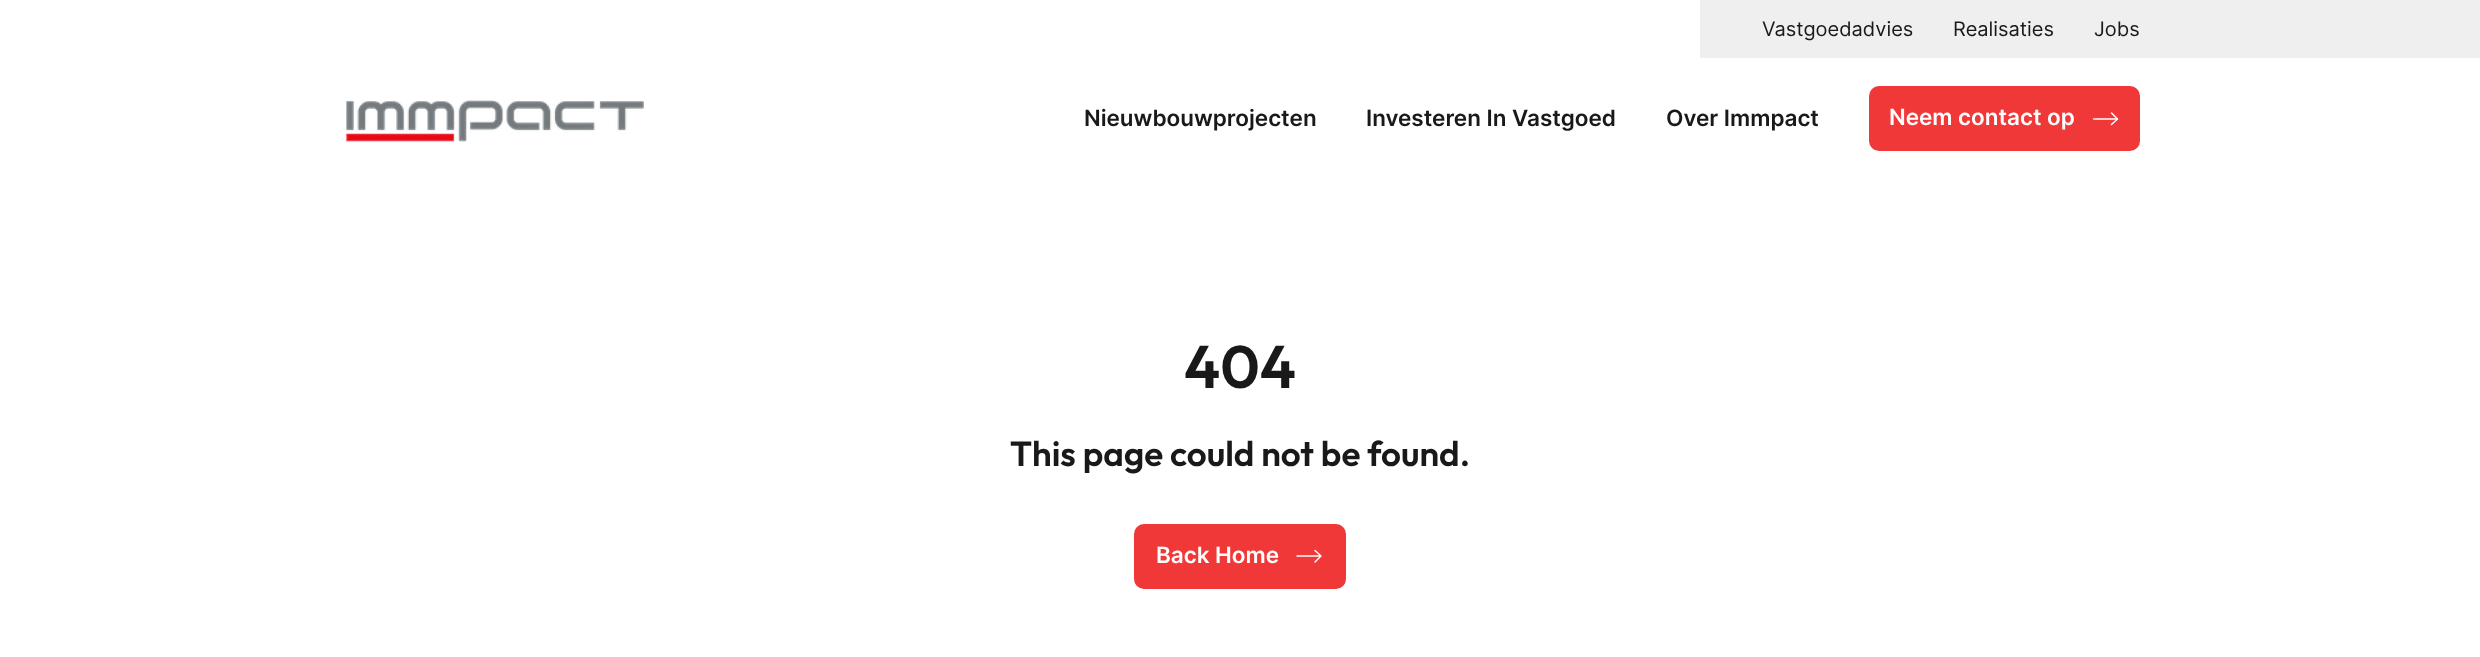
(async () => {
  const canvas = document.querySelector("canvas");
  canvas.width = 2480;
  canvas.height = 657;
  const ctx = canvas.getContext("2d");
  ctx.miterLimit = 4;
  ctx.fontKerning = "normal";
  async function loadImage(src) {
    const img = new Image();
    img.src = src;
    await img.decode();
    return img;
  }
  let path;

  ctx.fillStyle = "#ffffff";
  ctx.fillRect(0, 0, 2480, 657);
  ctx.fillStyle = "#efefef";
  ctx.fillRect(1700, 0, 780, 58);
  ctx.drawImage(await loadImage("img/1.png"), 346, 100, 298, 42);
  ctx.fillStyle = "#f03838";
  ctx.beginPath();
  ctx.roundRect(1869, 86, 271, 65, 10);
  ctx.fill();
  ctx.save();
  ctx.beginPath();
  ctx.rect(2093, 111, 25, 15);
  ctx.clip();
  path = new Path2D("M2093.5 119H2117.5");
  ctx.strokeStyle = "#ffffff";
  ctx.lineWidth = 1.5;
  ctx.lineCap = "round";
  ctx.lineJoin = "round";
  ctx.stroke(path);
  ctx.restore();
  path = new Path2D("M2111.5 124.5L2117.5 119L2111.5 113");
  ctx.strokeStyle = "#ffffff";
  ctx.lineWidth = 1.5;
  ctx.lineCap = "round";
  ctx.lineJoin = "round";
  ctx.stroke(path);
  ctx.beginPath();
  ctx.roundRect(1135.5, 525.5, 209, 62, 8.5);
  ctx.fill();
  ctx.strokeStyle = "#f03838";
  ctx.lineWidth = 3;
  ctx.lineJoin = "miter";
  ctx.stroke();
  path = new Path2D("M1297 556H1321M1315 562L1321 556L1315 550.5");
  ctx.strokeStyle = "#fdfdfd";
  ctx.lineWidth = 1.5;
  ctx.lineJoin = "round";
  ctx.stroke(path);
  ctx.font = "20px Inter";
  ctx.fillStyle = "#191919";
  for (const [text, x, y] of [
    ["Vastgoedadvies", 1762, 36],
    ["Realisaties", 1953, 36],
    ["Jobs", 2094, 36],
  ]) {
    ctx.fillText(text, x, y);
  }
  ctx.font = "600 22.5px Inter";
  for (const [text, x, y] of [
    ["Nieuwbouwprojecten", 1084, 126],
    ["Investeren In Vastgoed", 1366, 126],
    ["Over Immpact", 1666, 126],
  ]) {
    ctx.fillText(text, x, y);
  }
  ctx.fillStyle = "#fdfdfd";
  ctx.fillText("Neem contact op", 1889, 125);
  ctx.font = "600 60px Outfit";
  ctx.fillStyle = "#191919";
  ctx.fillText("404", 1184, 388);
  ctx.font = "600 35px Outfit";
  ctx.fillText("This page could not be found.", 1010, 466);
  ctx.font = "600 22.5px Inter";
  ctx.fillStyle = "#fdfdfd";
  ctx.fillText("Back Home", 1156, 563);
})();
